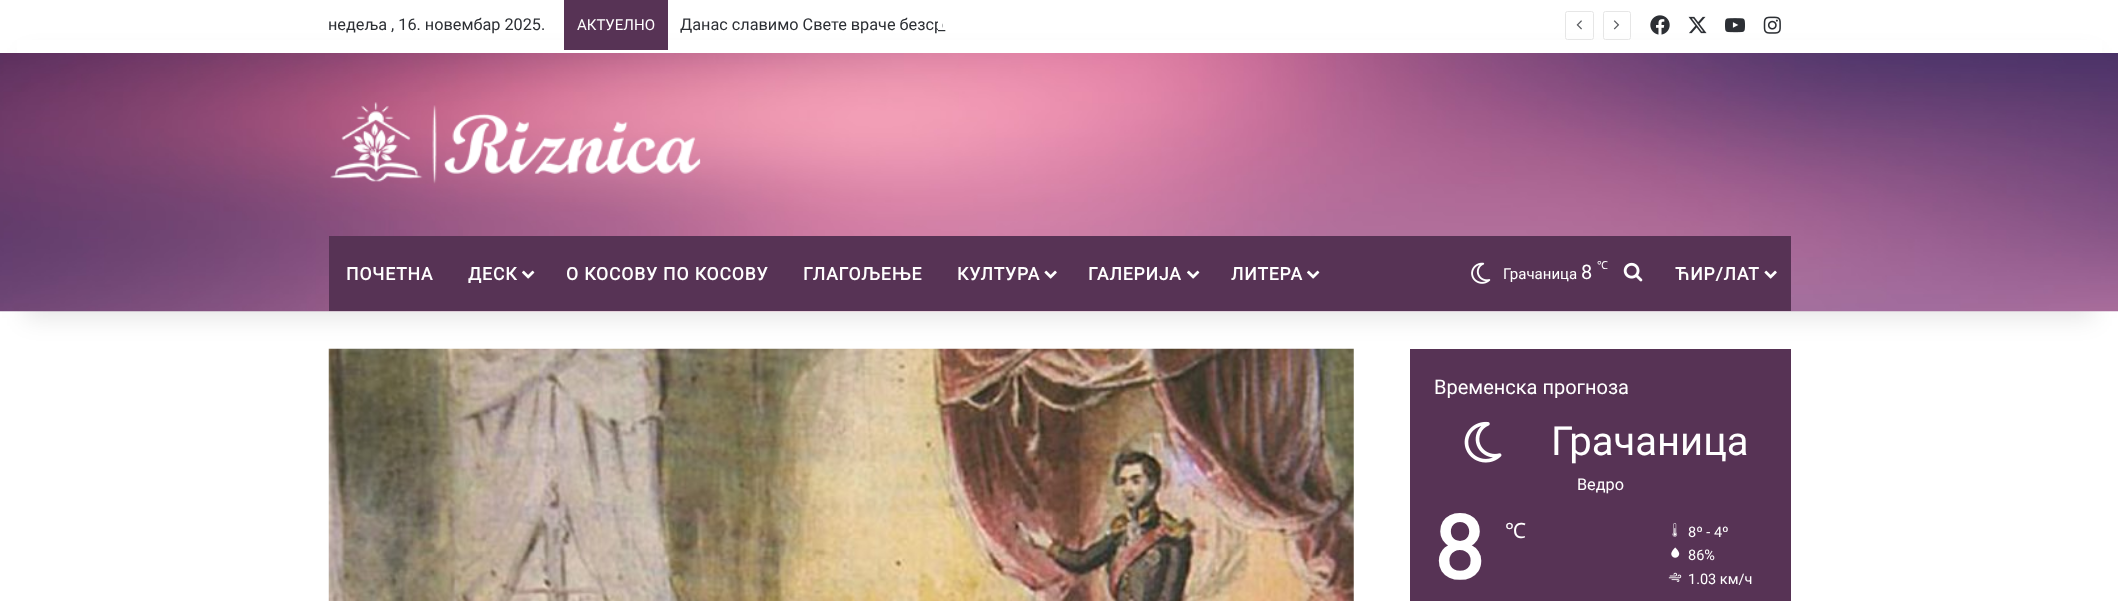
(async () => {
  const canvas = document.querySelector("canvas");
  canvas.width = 2118;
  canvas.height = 601;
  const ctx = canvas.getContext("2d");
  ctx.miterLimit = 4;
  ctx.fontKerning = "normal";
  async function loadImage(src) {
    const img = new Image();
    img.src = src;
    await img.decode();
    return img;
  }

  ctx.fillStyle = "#ffffff";
  ctx.fillRect(0, 0, 2118, 601);
  ctx.drawImage(await loadImage("img/13.png"), 328, 348, 1026, 253);
  ctx.fillStyle = "#573355";
  ctx.fillRect(1410, 349, 381, 252);
  ctx.fillStyle = "rgba(0, 0, 0, 0.1)";
  ctx.filter = "blur(12.5px)";
  ctx.beginPath();
  ctx.rect(25, 56, 2069, 262);
  ctx.fill();
  ctx.filter = "none";
  ctx.drawImage(await loadImage("img/1.png"), 0, 53, 2118, 259);
  ctx.fillStyle = "#ffffff";
  ctx.fillRect(17, 40, 2085, 13);
  ctx.fillStyle = "#573355";
  ctx.fillRect(564, 0, 104, 50);
  ctx.beginPath();
  ctx.roundRect(1565.5, 11.5, 28, 28, 2);
  ctx.strokeStyle = "#e6e6e6";
  ctx.stroke();
  ctx.drawImage(await loadImage("img/2.png"), 1576, 20, 6, 10);
  ctx.beginPath();
  ctx.roundRect(1603.5, 11.5, 27, 28, 2);
  ctx.stroke();
  ctx.drawImage(await loadImage("img/3.png"), 1613, 20, 7, 10);
  ctx.drawImage(await loadImage("img/4.png"), 1650, 15, 20, 20);
  ctx.drawImage(await loadImage("img/5.png"), 1688, 16, 19, 18);
  ctx.drawImage(await loadImage("img/6.png"), 1725, 18, 20, 15);
  ctx.drawImage(await loadImage("img/7.png"), 1763, 16, 18, 18);
  ctx.drawImage(await loadImage("img/8.png"), 330, 102, 371, 82);
  ctx.fillRect(329, 236, 1462, 75);
  ctx.drawImage(await loadImage("img/9.png"), 1471, 262, 20, 22);
  ctx.drawImage(await loadImage("img/10.png"), 1623, 262, 20, 20);
  ctx.drawImage(await loadImage("img/11.png"), 522, 270, 13, 9);
  ctx.drawImage(await loadImage("img/12.png"), 1044, 270, 13, 9);
  ctx.drawImage(await loadImage("img/11.png"), 1187, 270, 13, 9);
  ctx.drawImage(await loadImage("img/11.png"), 1307, 270, 13, 9);
  ctx.drawImage(await loadImage("img/12.png"), 1764, 270, 13, 9);
  ctx.drawImage(await loadImage("img/14.png"), 1464, 421, 38, 42);
  ctx.drawImage(await loadImage("img/15.png"), 1672, 523, 6, 14);
  ctx.drawImage(await loadImage("img/16.png"), 1671, 547, 9, 11);
  ctx.drawImage(await loadImage("img/17.png"), 1668, 572, 14, 10);
  ctx.font = "16.25px Roboto";
  ctx.fillStyle = "#2c2f34";
  ctx.fillText("недеља , 16. новембар 2025.", 328, 30);
  ctx.font = "15px Roboto";
  ctx.fillStyle = "#ffffff";
  ctx.fillText("АКТУЕЛНО", 577, 30);
  ctx.font = "16.25px Roboto";
  ctx.fillStyle = "#2c2f34";
  ctx.fillText("Данас славимо Свете враче безср", 680, 30);
  ctx.fillStyle = "#ffffff";
  ctx.fillRect(938, 21, 4, 10);
  ctx.fillStyle = "#2c2f34";
  ctx.fillText("_", 938, 30);
  ctx.font = "15px Roboto";
  ctx.fillStyle = "#ffffff";
  ctx.fillText("Грачаница", 1503, 279);
  ctx.font = "20px Roboto";
  ctx.fillText("8", 1581, 279);
  ctx.font = "11px Noto Sans";
  ctx.fillText("℃", 1597, 269);
  ctx.letterSpacing = "0.9px";
  ctx.font = "bold 17.5px Roboto";
  for (const [text, x, y] of [
    ["ПОЧЕТНА", 346, 280],
    ["ДЕСК", 468, 280],
    ["О КОСОВУ ПО КОСОВУ", 566, 280],
    ["ГЛАГОЉЕЊЕ", 803, 280],
    ["КУЛТУРА", 957, 280],
    ["ГАЛЕРИЈА", 1088, 280],
    ["ЛИТЕРА", 1231, 280],
    ["ЋИР/ЛАТ", 1675, 280],
  ]) {
    ctx.fillText(text, x, y);
  }
  ctx.letterSpacing = "0px";
  ctx.font = "20px Roboto";
  ctx.fillText("Временска прогноза", 1434, 394);
  ctx.font = "40px Roboto";
  ctx.fillText("Грачаница", 1551, 455);
  ctx.font = "16.25px Roboto";
  ctx.fillText("Ведро", 1577, 490);
  ctx.font = "bold 88px Roboto";
  ctx.fillText("8", 1434, 579);
  ctx.font = "21px Noto Sans";
  ctx.fillText("℃", 1505, 538);
  ctx.font = "14.5px Roboto";
  for (const [text, x, y] of [
    ["8º - 4º", 1688, 537],
    ["86%", 1688, 560],
    ["1.03 км/ч", 1688, 584],
  ]) {
    ctx.fillText(text, x, y);
  }
})();
